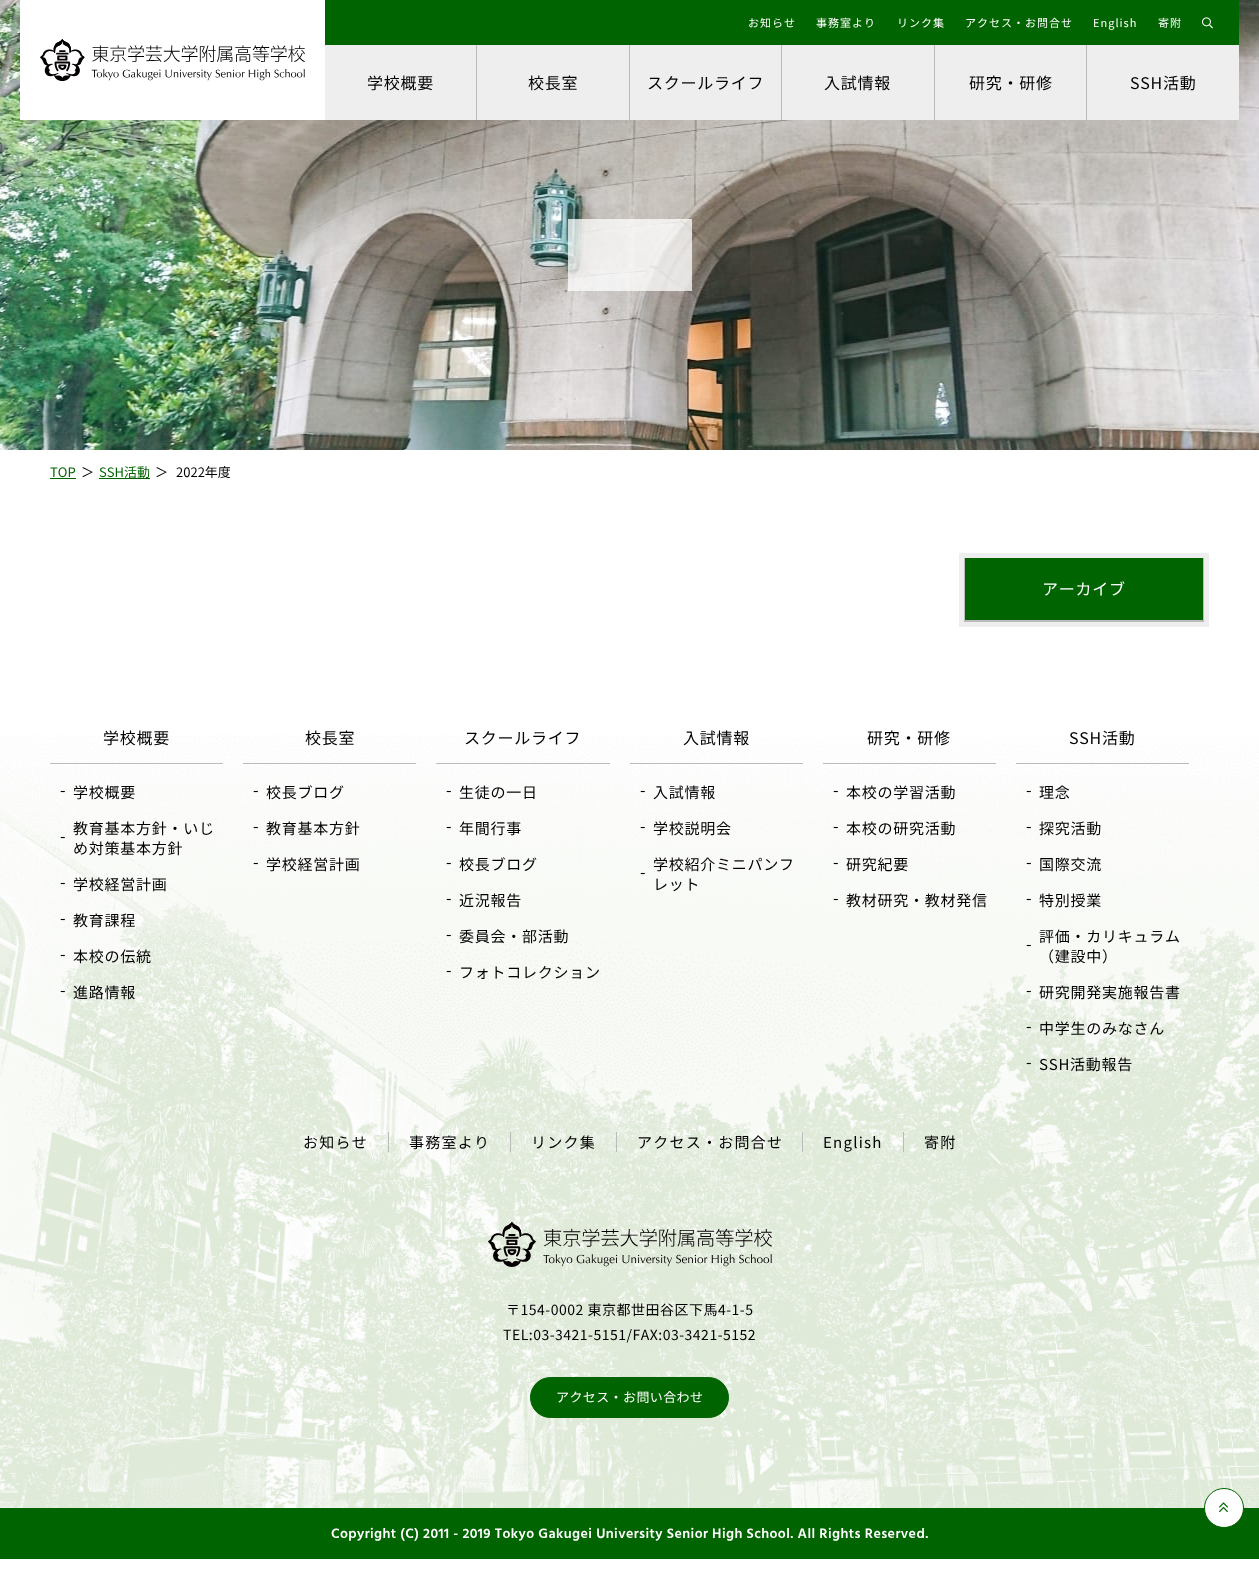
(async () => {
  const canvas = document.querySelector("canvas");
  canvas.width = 1259;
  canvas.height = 1584;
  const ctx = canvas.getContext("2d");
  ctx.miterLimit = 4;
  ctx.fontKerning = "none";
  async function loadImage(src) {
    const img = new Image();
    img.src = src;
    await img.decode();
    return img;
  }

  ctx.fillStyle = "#ffffff";
  ctx.fillRect(0, 0, 1259, 1584);
  ctx.drawImage(await loadImage("img/3.png"), 0, 0, 1259, 450);
  ctx.fillRect(20, 0, 305, 120);
  ctx.drawImage(await loadImage("img/1.png"), 40, 39, 265, 42);
  ctx.fillStyle = "#006400";
  ctx.fillRect(325, 0, 914, 45);
  ctx.drawImage(await loadImage("img/2.png"), 1202, 17, 11, 12);
  for (const [x, y, w, h, color] of [
    [325, 45, 914, 75, "#eeeeee"],
    [476, 45, 1, 75, "#bbbbbb"],
    [629, 45, 1, 75, "#bbbbbb"],
    [781, 45, 1, 75, "#bbbbbb"],
    [934, 45, 1, 75, "#bbbbbb"],
    [1086, 45, 1, 75, "#bbbbbb"],
    [568, 219, 124, 72, "rgba(255, 255, 255, 0.75)"],
    [50, 478, 26, 1, "#006400"],
    [99, 478, 51, 1, "#006400"],
    [959, 553, 250, 74, "#eeeeee"],
    [964, 620, 240, 2, "#bbbbbb"],
    [965, 558, 238, 62, "#006400"],
    [1203, 558, 1, 62, "#bbbbbb"],
    [964, 558, 1, 62, "#bbbbbb"],
  ]) {
    ctx.fillStyle = color;
    ctx.fillRect(x, y, w, h);
  }
  ctx.drawImage(await loadImage("img/4.png"), 0, 734, 1259, 774);
  for (const [x, y, w, h, color] of [
    [50, 763, 173, 1, "#bbbbbb"],
    [243, 763, 173, 1, "#bbbbbb"],
    [436, 763, 174, 1, "#bbbbbb"],
    [630, 763, 173, 1, "#bbbbbb"],
    [823, 763, 173, 1, "#bbbbbb"],
    [1016, 763, 173, 1, "#bbbbbb"],
    [388, 1132, 1, 20, "#bbbbbb"],
    [510, 1132, 1, 20, "#bbbbbb"],
    [616, 1132, 1, 20, "#bbbbbb"],
    [802, 1132, 1, 20, "#bbbbbb"],
    [903, 1132, 1, 20, "#bbbbbb"],
  ]) {
    ctx.fillStyle = color;
    ctx.fillRect(x, y, w, h);
  }
  ctx.drawImage(await loadImage("img/5.png"), 488, 1222, 284, 45);
  ctx.fillStyle = "#006400";
  ctx.beginPath();
  ctx.roundRect(530.5, 1377.5, 198, 40, 20);
  ctx.fill();
  ctx.strokeStyle = "#006400";
  ctx.stroke();
  ctx.fillRect(0, 1508, 1259, 51);
  ctx.fillStyle = "#ffffff";
  ctx.beginPath();
  ctx.arc(1224, 1508, 19.5, 0, Math.PI * 2);
  ctx.fill();
  ctx.stroke();
  ctx.drawImage(await loadImage("img/6.png"), 1219, 1502, 9, 11);
  ctx.letterSpacing = "1px";
  ctx.font = "11px Noto Sans JP";
  for (const [text, x, y] of [
    ["お知らせ", 748, 27],
    ["事務室より", 816, 27],
    ["リンク集", 897, 27],
    ["アクセス・お問合せ", 965, 27],
    ["English", 1093, 27],
    ["寄附", 1158, 27],
  ]) {
    ctx.fillText(text, x, y);
  }
  ctx.letterSpacing = "0.75px";
  ctx.font = "16px Noto Sans JP";
  ctx.fillStyle = "#000000";
  for (const [text, x, y] of [
    ["学校概要", 367, 89],
    ["校長室", 528, 89],
    ["スクールライフ", 647, 89],
    ["入試情報", 824, 89],
    ["研究・研修", 969, 89],
    ["SSH活動", 1130, 89],
  ]) {
    ctx.fillText(text, x, y);
  }
  ctx.letterSpacing = "0px";
  ctx.font = "13px Noto Sans JP";
  ctx.fillStyle = "#006400";
  ctx.fillText("TOP", 50, 477);
  ctx.fillStyle = "#000000";
  ctx.fillText("＞", 81, 477);
  ctx.fillStyle = "#006400";
  ctx.fillText("SSH活動", 99, 477);
  ctx.fillStyle = "#000000";
  ctx.fillText("＞", 155, 477);
  ctx.fillText("2022年度", 176, 477);
  ctx.letterSpacing = "0.75px";
  ctx.font = "16px Noto Sans JP";
  ctx.fillStyle = "#ffffff";
  ctx.fillText("アーカイブ", 1042, 595);
  ctx.fillStyle = "#000000";
  ctx.fillText("学校概要", 103, 744);
  ctx.fillText("-", 60, 796);
  ctx.font = "15px Noto Sans JP";
  ctx.fillText("学校概要", 73, 798);
  ctx.fillText("教育基本方針・いじ", 73, 834);
  ctx.font = "16px Noto Sans JP";
  ctx.fillText("-", 60, 842);
  ctx.font = "15px Noto Sans JP";
  ctx.fillText("め対策基本方針", 73, 854);
  ctx.font = "16px Noto Sans JP";
  ctx.fillText("-", 60, 888);
  ctx.font = "15px Noto Sans JP";
  ctx.fillText("学校経営計画", 73, 890);
  ctx.font = "16px Noto Sans JP";
  ctx.fillText("-", 60, 924);
  ctx.font = "15px Noto Sans JP";
  ctx.fillText("教育課程", 73, 926);
  ctx.font = "16px Noto Sans JP";
  ctx.fillText("-", 60, 960);
  ctx.font = "15px Noto Sans JP";
  ctx.fillText("本校の伝統", 73, 962);
  ctx.font = "16px Noto Sans JP";
  ctx.fillText("-", 60, 996);
  ctx.font = "15px Noto Sans JP";
  ctx.fillText("進路情報", 73, 998);
  ctx.font = "16px Noto Sans JP";
  ctx.fillText("校長室", 305, 744);
  ctx.fillText("-", 253, 796);
  ctx.font = "15px Noto Sans JP";
  ctx.fillText("校長ブログ", 266, 798);
  ctx.font = "16px Noto Sans JP";
  ctx.fillText("-", 253, 832);
  ctx.font = "15px Noto Sans JP";
  ctx.fillText("教育基本方針", 266, 834);
  ctx.font = "16px Noto Sans JP";
  ctx.fillText("-", 253, 868);
  ctx.font = "15px Noto Sans JP";
  ctx.fillText("学校経営計画", 266, 870);
  ctx.font = "16px Noto Sans JP";
  ctx.fillText("スクールライフ", 464, 744);
  ctx.fillText("-", 446, 796);
  ctx.font = "15px Noto Sans JP";
  ctx.fillText("生徒の一日", 459, 798);
  ctx.font = "16px Noto Sans JP";
  ctx.fillText("-", 446, 832);
  ctx.font = "15px Noto Sans JP";
  ctx.fillText("年間行事", 459, 834);
  ctx.font = "16px Noto Sans JP";
  ctx.fillText("-", 446, 868);
  ctx.font = "15px Noto Sans JP";
  ctx.fillText("校長ブログ", 459, 870);
  ctx.font = "16px Noto Sans JP";
  ctx.fillText("-", 446, 904);
  ctx.font = "15px Noto Sans JP";
  ctx.fillText("近況報告", 459, 906);
  ctx.font = "16px Noto Sans JP";
  ctx.fillText("-", 446, 940);
  ctx.font = "15px Noto Sans JP";
  ctx.fillText("委員会・部活動", 459, 942);
  ctx.font = "16px Noto Sans JP";
  ctx.fillText("-", 446, 976);
  ctx.font = "15px Noto Sans JP";
  ctx.fillText("フォトコレクション", 459, 978);
  ctx.font = "16px Noto Sans JP";
  ctx.fillText("入試情報", 683, 744);
  ctx.fillText("-", 640, 796);
  ctx.font = "15px Noto Sans JP";
  ctx.fillText("入試情報", 653, 798);
  ctx.font = "16px Noto Sans JP";
  ctx.fillText("-", 640, 832);
  ctx.font = "15px Noto Sans JP";
  ctx.fillText("学校説明会", 653, 834);
  ctx.fillText("学校紹介ミニパンフ", 653, 870);
  ctx.font = "16px Noto Sans JP";
  ctx.fillText("-", 640, 878);
  ctx.font = "15px Noto Sans JP";
  ctx.fillText("レット", 653, 890);
  ctx.font = "16px Noto Sans JP";
  ctx.fillText("研究・研修", 867, 744);
  ctx.fillText("-", 833, 796);
  ctx.font = "15px Noto Sans JP";
  ctx.fillText("本校の学習活動", 846, 798);
  ctx.font = "16px Noto Sans JP";
  ctx.fillText("-", 833, 832);
  ctx.font = "15px Noto Sans JP";
  ctx.fillText("本校の研究活動", 846, 834);
  ctx.font = "16px Noto Sans JP";
  ctx.fillText("-", 833, 868);
  ctx.font = "15px Noto Sans JP";
  ctx.fillText("研究紀要", 846, 870);
  ctx.font = "16px Noto Sans JP";
  ctx.fillText("-", 833, 904);
  ctx.font = "15px Noto Sans JP";
  ctx.fillText("教材研究・教材発信", 846, 906);
  ctx.font = "16px Noto Sans JP";
  ctx.fillText("SSH活動", 1069, 744);
  ctx.fillText("-", 1026, 796);
  ctx.font = "15px Noto Sans JP";
  ctx.fillText("理念", 1039, 798);
  ctx.font = "16px Noto Sans JP";
  ctx.fillText("-", 1026, 832);
  ctx.font = "15px Noto Sans JP";
  ctx.fillText("探究活動", 1039, 834);
  ctx.font = "16px Noto Sans JP";
  ctx.fillText("-", 1026, 868);
  ctx.font = "15px Noto Sans JP";
  ctx.fillText("国際交流", 1039, 870);
  ctx.font = "16px Noto Sans JP";
  ctx.fillText("-", 1026, 904);
  ctx.font = "15px Noto Sans JP";
  ctx.fillText("特別授業", 1039, 906);
  ctx.fillText("評価・カリキュラム", 1039, 942);
  ctx.font = "16px Noto Sans JP";
  ctx.fillText("-", 1026, 950);
  ctx.font = "15px Noto Sans JP";
  ctx.fillText("（建設中）", 1039, 962);
  ctx.font = "16px Noto Sans JP";
  ctx.fillText("-", 1026, 996);
  ctx.font = "15px Noto Sans JP";
  ctx.fillText("研究開発実施報告書", 1039, 998);
  ctx.font = "16px Noto Sans JP";
  ctx.fillText("-", 1026, 1032);
  ctx.font = "15px Noto Sans JP";
  ctx.fillText("中学生のみなさん", 1039, 1034);
  ctx.font = "16px Noto Sans JP";
  ctx.fillText("-", 1026, 1068);
  ctx.font = "15px Noto Sans JP";
  ctx.fillText("SSH活動報告", 1039, 1070);
  ctx.letterSpacing = "1.25px";
  for (const [text, x, y] of [
    ["お知らせ", 303, 1148],
    ["事務室より", 409, 1148],
    ["リンク集", 531, 1148],
    ["アクセス・お問合せ", 637, 1148],
    ["English", 823, 1148],
    ["寄附", 924, 1148],
  ]) {
    ctx.fillText(text, x, y);
  }
  ctx.letterSpacing = "0.5px";
  ctx.font = "14px Noto Sans JP";
  ctx.fillText("〒154-0002 東京都世田谷区下馬4-1-5", 506, 1315);
  ctx.fillText("TEL:03-3421-5151/FAX:03-3421-5152", 503, 1340);
  ctx.letterSpacing = "0.4px";
  ctx.font = "13px Noto Sans JP";
  ctx.fillStyle = "#ffffff";
  ctx.fillText("アクセス・お問い合わせ", 556, 1402);
  ctx.letterSpacing = "0.42px";
  ctx.font = "600 14px Hind Siliguri";
  ctx.fillText("Copyright (C) 2011 - 2019 Tokyo Gakugei University Senior High School. All Rights Reserved.", 331, 1538);
})();
